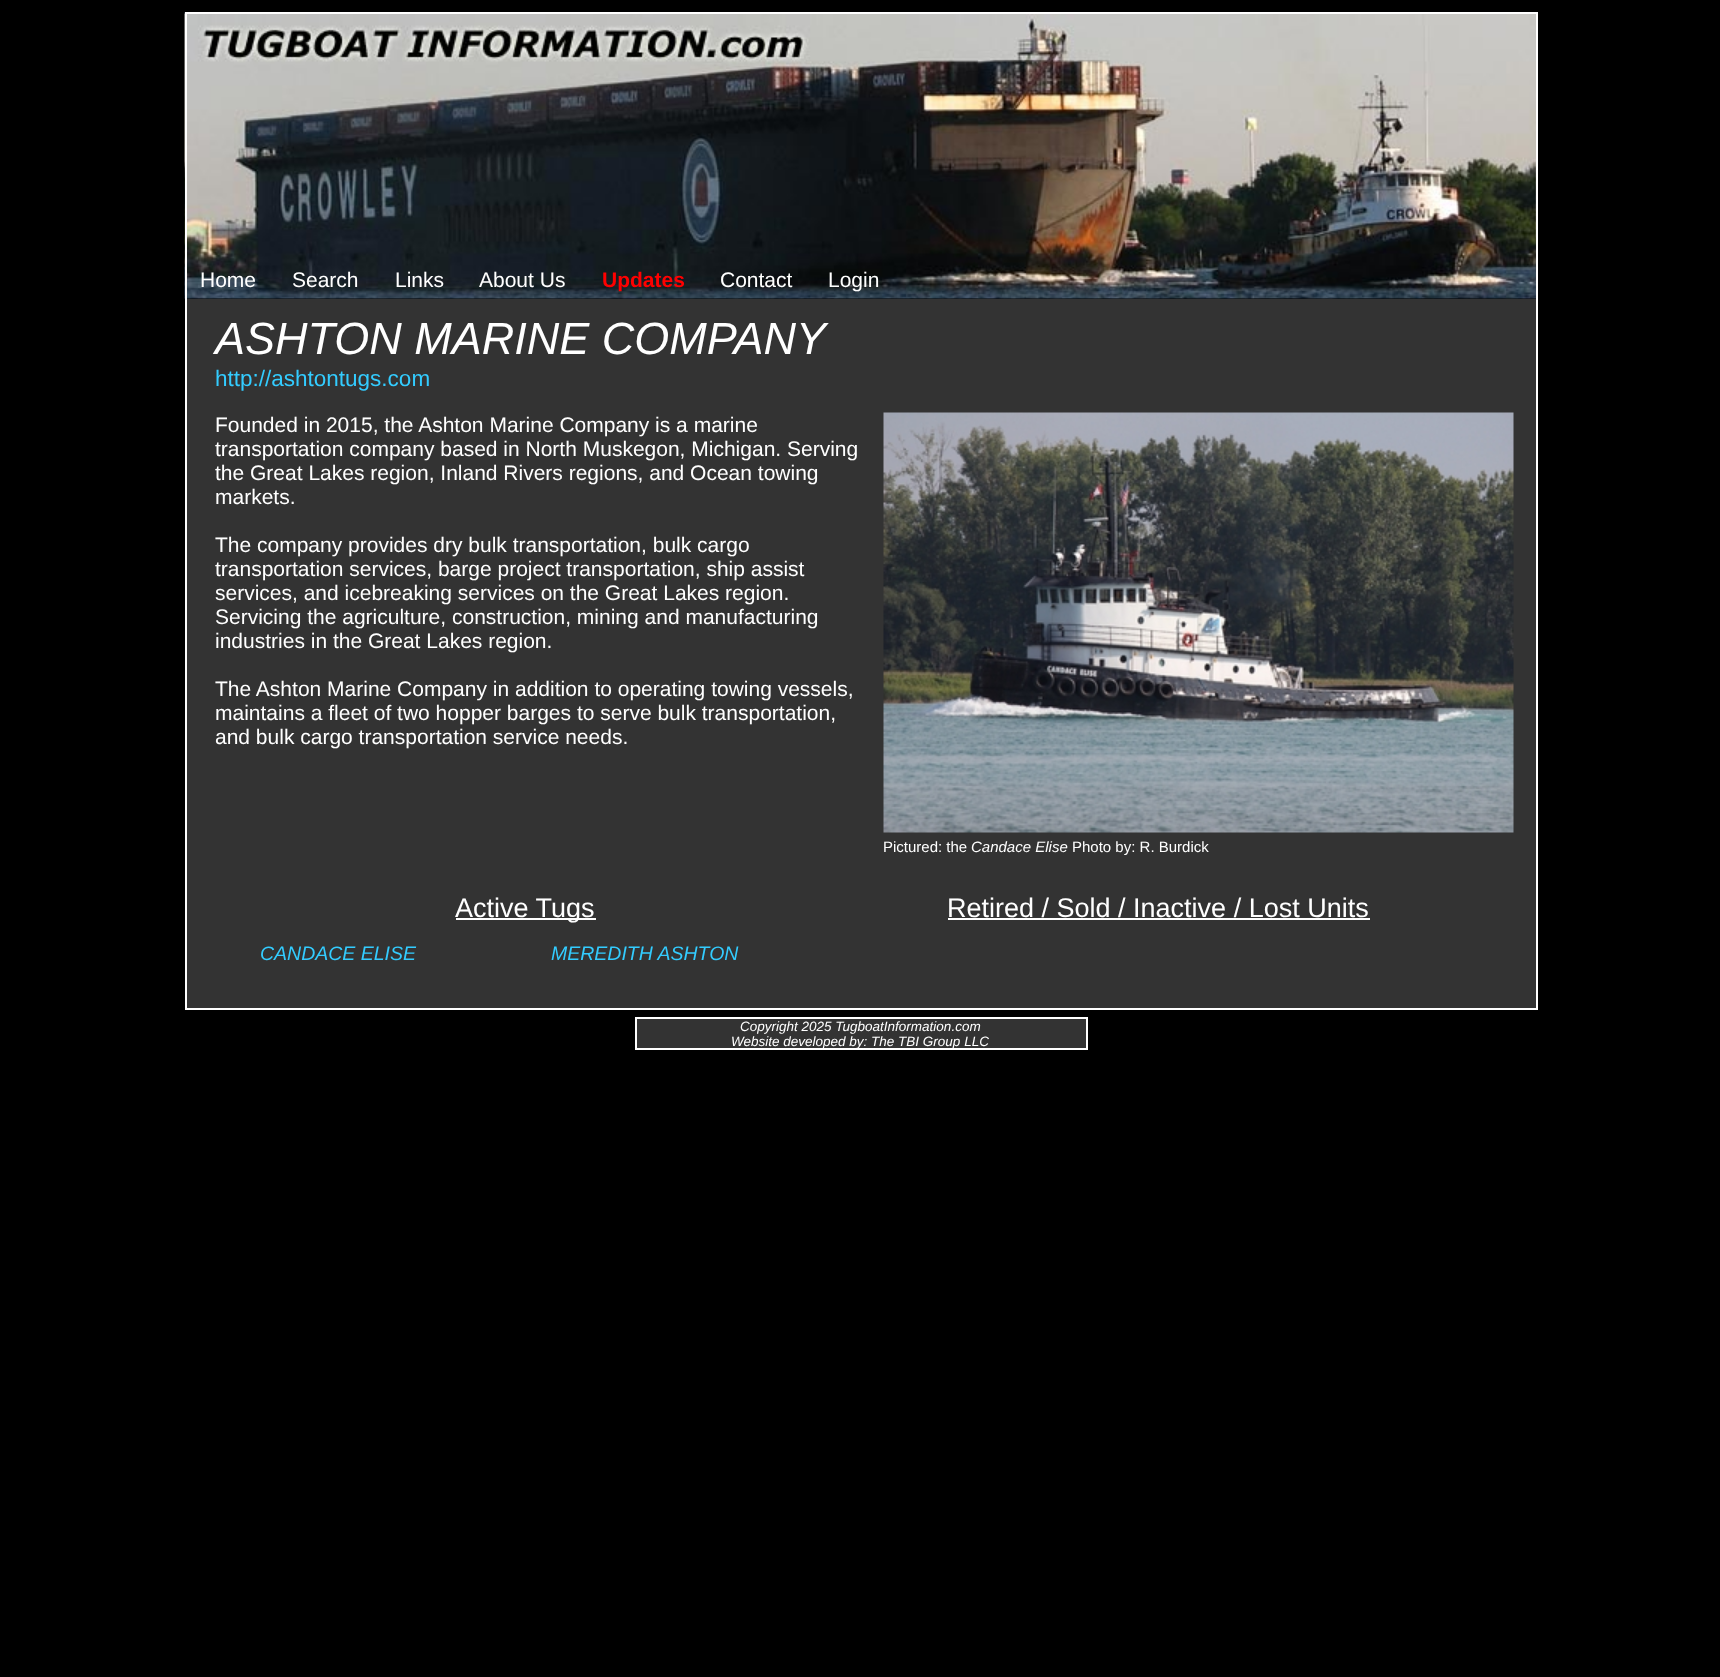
(async () => {
  const canvas = document.querySelector("canvas");
  canvas.width = 1720;
  canvas.height = 1677;
  const ctx = canvas.getContext("2d");
  ctx.miterLimit = 4;
  ctx.fontKerning = "normal";
  async function loadImage(src) {
    const img = new Image();
    img.src = src;
    await img.decode();
    return img;
  }

  ctx.fillStyle = "#000000";
  ctx.fillRect(0, 0, 1720, 1677);
  ctx.drawImage(await loadImage("img/1.png"), 184, 12, 1352, 287);
  for (const [x, y, w, h, color] of [
    [185, 12, 1353, 2, "#ffffff"],
    [1536, 12, 2, 287, "#ffffff"],
    [185, 12, 2, 287, "#ffffff"],
    [187, 299, 1349, 709, "#333333"],
    [1536, 299, 2, 711, "#ffffff"],
    [185, 1008, 1353, 2, "#ffffff"],
    [185, 299, 2, 711, "#ffffff"],
  ]) {
    ctx.fillStyle = color;
    ctx.fillRect(x, y, w, h);
  }
  ctx.drawImage(await loadImage("img/2.png"), 883, 412, 631, 421);
  ctx.fillRect(456, 918, 140, 2);
  ctx.fillRect(948, 918, 422, 2);
  ctx.fillStyle = "#333333";
  ctx.beginPath();
  ctx.rect(636, 1018, 451, 31);
  ctx.fill();
  ctx.strokeStyle = "#ffffff";
  ctx.lineWidth = 2;
  ctx.stroke();
  ctx.font = "21px Liberation Sans";
  ctx.fillStyle = "#ffffff";
  for (const [text, x, y] of [
    ["Home", 200, 287],
    ["Search", 292, 287],
    ["Links", 395, 287],
    ["About Us", 479, 287],
  ]) {
    ctx.fillText(text, x, y);
  }
  ctx.font = "bold 21px Liberation Sans";
  ctx.fillStyle = "#ff0000";
  ctx.fillText("Updates", 602, 287);
  ctx.font = "21px Liberation Sans";
  ctx.fillStyle = "#ffffff";
  ctx.fillText("Contact", 720, 287);
  ctx.fillText("Login", 828, 287);
  ctx.font = "italic 45px Liberation Sans";
  ctx.fillText("ASHTON MARINE COMPANY", 215, 354);
  ctx.font = "22.5px Liberation Sans";
  ctx.fillStyle = "#33ccff";
  ctx.fillText("http://ashtontugs.com", 215, 386);
  ctx.font = "21px Liberation Sans";
  ctx.fillStyle = "#ffffff";
  for (const [text, x, y] of [
    ["Founded in 2015, the Ashton Marine Company is a marine", 215, 432],
    ["transportation company based in North Muskegon, Michigan. Serving", 215, 456],
    ["the Great Lakes region, Inland Rivers regions, and Ocean towing", 215, 480],
    ["markets.", 215, 504],
    ["The company provides dry bulk transportation, bulk cargo", 215, 552],
    ["transportation services, barge project transportation, ship assist", 215, 576],
    ["services, and icebreaking services on the Great Lakes region.", 215, 600],
    ["Servicing the agriculture, construction, mining and manufacturing", 215, 624],
    ["industries in the Great Lakes region.", 215, 648],
    ["The Ashton Marine Company in addition to operating towing vessels,", 215, 696],
    ["maintains a fleet of two hopper barges to serve bulk transportation,", 215, 720],
    ["and bulk cargo transportation service needs.", 215, 744],
  ]) {
    ctx.fillText(text, x, y);
  }
  ctx.font = "15px Liberation Sans";
  ctx.fillText("Pictured: the", 883, 852);
  ctx.font = "italic 15px Liberation Sans";
  ctx.fillText("Candace Elise", 971, 852);
  ctx.font = "15px Liberation Sans";
  ctx.fillText("Photo by: R. Burdick", 1072, 852);
  ctx.font = "27px Liberation Sans";
  ctx.fillText("Active Tugs", 455, 917);
  ctx.font = "italic 19.5px Liberation Sans";
  ctx.fillStyle = "#33ccff";
  ctx.fillText("CANDACE ELISE", 260, 960);
  ctx.fillText("MEREDITH ASHTON", 551, 960);
  ctx.font = "27px Liberation Sans";
  ctx.fillStyle = "#ffffff";
  ctx.fillText("Retired / Sold / Inactive / Lost Units", 947, 917);
  ctx.font = "italic 13.5px Liberation Sans";
  ctx.fillText("Copyright 2025 TugboatInformation.com", 740, 1031);
  ctx.fillText("Website developed by: The TBI Group LLC", 731, 1046);
})();
